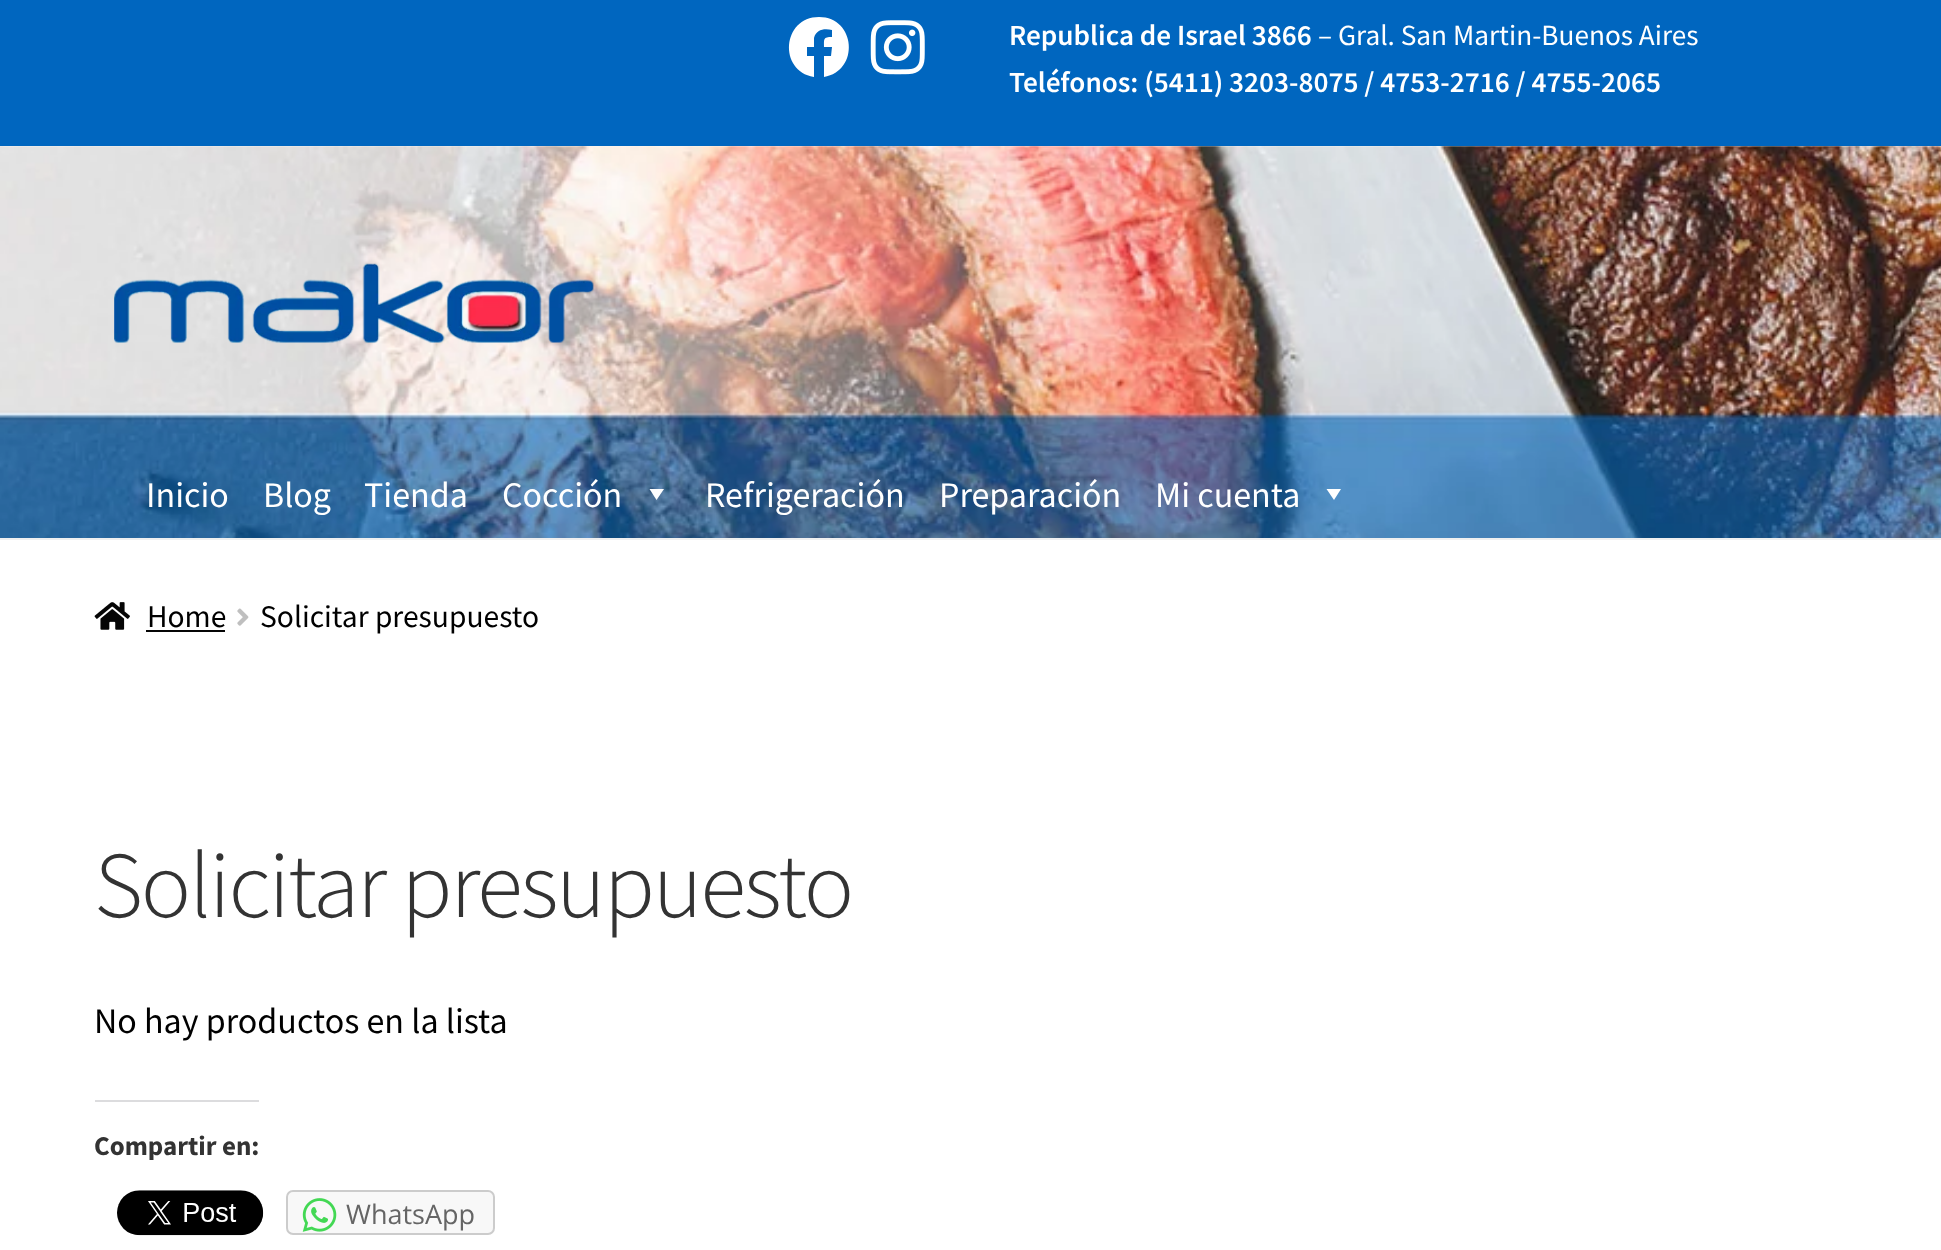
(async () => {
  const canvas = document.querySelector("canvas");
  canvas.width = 1941;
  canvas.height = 1250;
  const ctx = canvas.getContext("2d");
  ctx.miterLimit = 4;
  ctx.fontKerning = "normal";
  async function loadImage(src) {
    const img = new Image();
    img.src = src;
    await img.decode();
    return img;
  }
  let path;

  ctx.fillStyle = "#ffffff";
  ctx.fillRect(0, 0, 1941, 1250);
  ctx.fillStyle = "#0066bf";
  ctx.fillRect(0, 0, 1941, 146);
  ctx.fillStyle = "#ffffff";
  path = new Path2D("M819 17C782 17 778 71 814 77V56H807V47H814V38C816 29 825 28 832 30V37C823 37 824 39 824 47H832L831 56H824V77C860 71 856 17 819 17Z");
  ctx.fill(path);
  ctx.drawImage(await loadImage("img/1.png"), 870, 20, 55, 55);
  ctx.drawImage(await loadImage("img/2.png"), 0, 146, 1941, 392);
  ctx.fillStyle = "#f0f0f0";
  ctx.fillRect(0, 538, 1941, 2);
  ctx.drawImage(await loadImage("img/3.png"), 114, 263, 480, 80);
  ctx.fillStyle = "#ffffff";
  path = new Path2D("M664 489L656.5 500L649.5 489Z");
  ctx.fill(path);
  path = new Path2D("M1341 489L1334 500L1326.5 489Z");
  ctx.fill(path);
  ctx.drawImage(await loadImage("img/4.png"), 94, 602, 36, 28);
  ctx.fillStyle = "#050505";
  ctx.fillRect(146, 630, 79, 2);
  ctx.drawImage(await loadImage("img/5.png"), 237, 608, 12, 18);
  ctx.fillStyle = "#dcdcde";
  ctx.fillRect(95, 1100, 164, 2);
  ctx.drawImage(await loadImage("img/6.png"), 117, 1190, 147, 46);
  ctx.fillStyle = "#f8f8f8";
  ctx.beginPath();
  ctx.roundRect(287, 1191, 207, 43, 6);
  ctx.fill();
  ctx.strokeStyle = "#cccccc";
  ctx.lineWidth = 2;
  ctx.stroke();
  ctx.drawImage(await loadImage("img/7.png"), 302, 1198, 35, 34);
  ctx.font = "600 29.25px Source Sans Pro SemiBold";
  ctx.fillStyle = "#ffffff";
  ctx.fillText("Republica de Israel 3866", 1009, 45);
  ctx.font = "29.25px Source Sans Pro";
  ctx.fillText("– Gral. San Martin-Buenos Aires", 1318, 45);
  ctx.font = "600 29.25px Source Sans Pro SemiBold";
  ctx.fillText("Teléfonos: (5411) 3203-8075 / 4753-2716 / 4755-2065", 1009, 92);
  ctx.font = "36px Source Sans Pro";
  for (const [text, x, y] of [
    ["Inicio", 146, 507],
    ["Blog", 263, 507],
    ["Tienda", 364, 507],
    ["Cocción", 502, 507],
    ["Refrigeración", 705, 507],
    ["Preparación", 939, 507],
    ["Mi cuenta", 1155, 507],
  ]) {
    ctx.fillText(text, x, y);
  }
  ctx.font = "31.5px Source Sans Pro";
  ctx.fillStyle = "#000000";
  ctx.fillText("Home", 147, 627);
  ctx.fillText("Solicitar presupuesto", 260, 627);
  ctx.letterSpacing = "-2.25px";
  ctx.font = "300 94.25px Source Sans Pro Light";
  ctx.fillStyle = "#333333";
  ctx.fillText("Solicitar presupuesto", 94, 917);
  ctx.letterSpacing = "0px";
  ctx.font = "36px Source Sans Pro";
  ctx.fillStyle = "#000000";
  ctx.fillText("No hay productos en la lista", 94, 1033);
  ctx.font = "bold 27px Source Sans Pro";
  ctx.fillStyle = "#333333";
  ctx.fillText("Compartir en:", 94, 1155);
  ctx.font = "27px Open Sans";
  ctx.fillStyle = "#656565";
  ctx.fillText("WhatsApp", 346, 1224);
})();
